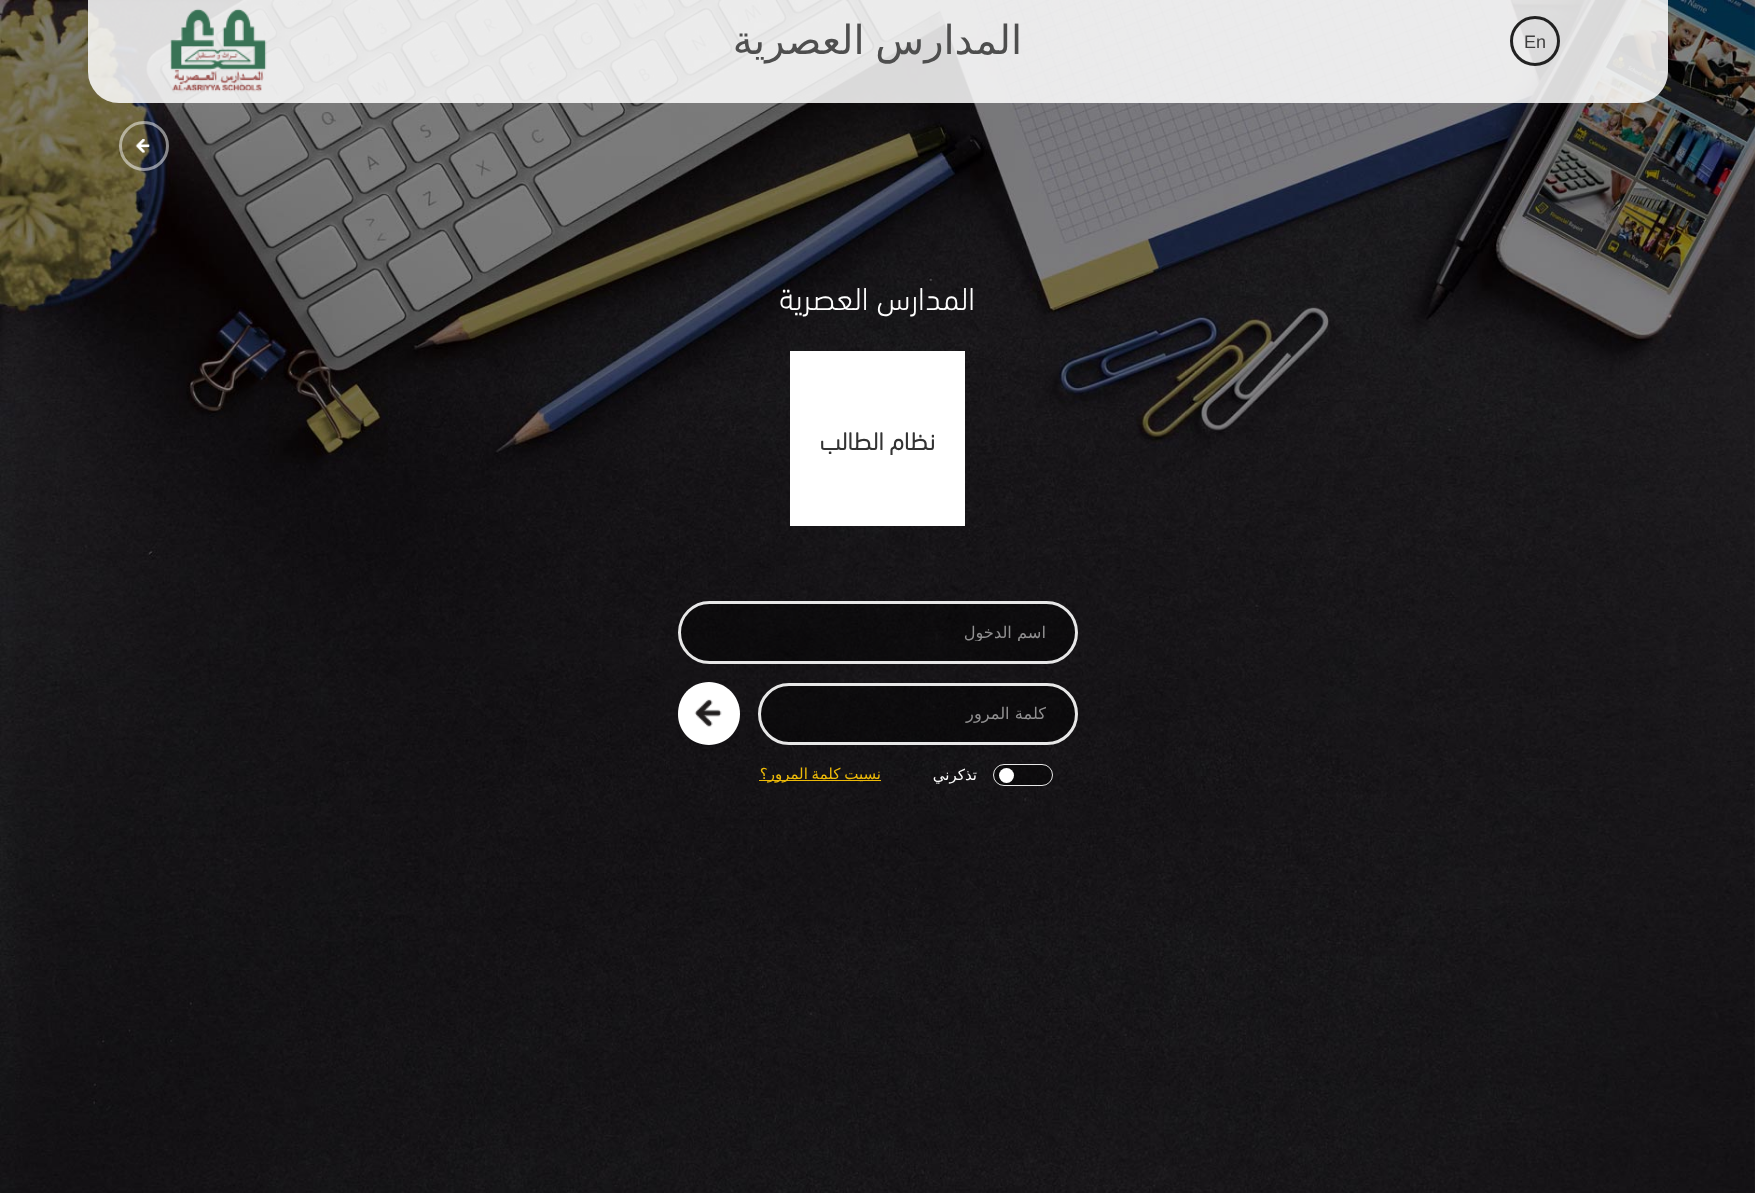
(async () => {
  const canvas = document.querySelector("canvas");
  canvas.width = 1755;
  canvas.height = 1193;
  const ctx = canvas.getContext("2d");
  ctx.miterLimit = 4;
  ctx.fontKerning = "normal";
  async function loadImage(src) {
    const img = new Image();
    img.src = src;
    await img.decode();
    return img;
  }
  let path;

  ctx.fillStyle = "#ffffff";
  ctx.fillRect(0, 0, 1755, 1193);
  ctx.drawImage(await loadImage("img/1.png"), 1754, 0, 1, 1193);
  ctx.drawImage(await loadImage("img/2.png"), 0, 0, 1755, 1193);
  ctx.fillStyle = "rgba(255, 255, 255, 0.85)";
  ctx.beginPath();
  ctx.roundRect(88, 0, 1580, 103, [0, 0, 31, 31]);
  ctx.fill();
  ctx.beginPath();
  ctx.arc(1535, 41, 23.5, 0, Math.PI * 2);
  ctx.strokeStyle = "rgba(0, 0, 0, 0.85)";
  ctx.lineWidth = 3;
  ctx.stroke();
  ctx.drawImage(await loadImage("img/3.png"), 170, 8, 97, 84);
  ctx.drawImage(await loadImage("img/4.png"), 135, 139, 15, 14);
  ctx.beginPath();
  ctx.arc(144, 146, 23.5, 0, Math.PI * 2);
  ctx.strokeStyle = "rgba(255, 255, 255, 0.5)";
  ctx.stroke();
  ctx.fillStyle = "#ffffff";
  ctx.fillRect(790, 351, 175, 175);
  ctx.fillStyle = "rgba(0, 0, 0, 0.4)";
  ctx.beginPath();
  ctx.roundRect(678, 601, 400, 63, 31.5);
  ctx.fill();
  ctx.beginPath();
  ctx.roundRect(679.5, 602.5, 397, 60, 30);
  ctx.strokeStyle = "rgba(255, 255, 255, 0.9)";
  ctx.stroke();
  ctx.beginPath();
  ctx.roundRect(758, 683, 320, 62, 31);
  ctx.fill();
  ctx.beginPath();
  ctx.roundRect(759.5, 684.5, 317, 59, 29.5);
  ctx.stroke();
  ctx.fillStyle = "#ffffff";
  path = new Path2D("M709 745C691 745 678 731 678 714C678 696 691 682 709 682C726 682 740 696 740 714C740 731 726 745 709 745Z");
  ctx.fill(path);
  ctx.drawImage(await loadImage("img/5.png"), 694, 699, 28, 28);
  ctx.fillStyle = "rgba(0, 0, 0, 0.4)";
  ctx.beginPath();
  ctx.roundRect(993, 764, 60, 22, 11);
  ctx.fill();
  ctx.beginPath();
  ctx.roundRect(993.5, 764.5, 59, 21, 10.5);
  ctx.lineWidth = 1;
  ctx.stroke();
  ctx.fillStyle = "#ffffff";
  ctx.beginPath();
  ctx.arc(1006.5, 775.5, 7.5, 0, Math.PI * 2);
  ctx.fill();
  ctx.fillStyle = "#edba08";
  ctx.fillRect(759, 780, 122, 1);
  ctx.font = "18px Liberation Sans";
  ctx.fillStyle = "#3e3e3e";
  ctx.fillText("En", 1524, 48);
  ctx.wordSpacing = "-2px";
  ctx.direction = "rtl";
  ctx.font = "40px DejaVu Sans";
  ctx.fillStyle = "#4e4e4e";
  ctx.fillText("المدارس العصرية", 1022, 54);
  ctx.wordSpacing = "0px";
  ctx.font = "300 32.5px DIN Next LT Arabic";
  ctx.fillStyle = "#ffffff";
  ctx.fillText("المدارس العصرية", 975, 310);
  ctx.font = "bold 25px DIN Next LT Arabic";
  ctx.fillStyle = "#333333";
  ctx.fillText("نظام الطالب", 935, 450);
  ctx.save();
  ctx.beginPath();
  ctx.rect(705, 623, 345, 18);
  ctx.clip();
  ctx.font = "16.25px DejaVu Sans";
  ctx.fillStyle = "#908f90";
  ctx.fillText("اسم الدخول", 1046, 638);
  ctx.restore();
  ctx.font = "16.25px DejaVu Sans";
  ctx.fillStyle = "#908f90";
  ctx.fillText("كلمة المرور", 1046, 719);
  ctx.font = "15px DejaVu Sans";
  ctx.fillStyle = "#ffffff";
  ctx.fillText("تذكرني", 977, 780);
  ctx.wordSpacing = "-1px";
  ctx.fillStyle = "#edba08";
  ctx.fillText("نسيت كلمة المرور؟", 881, 779);
})();
